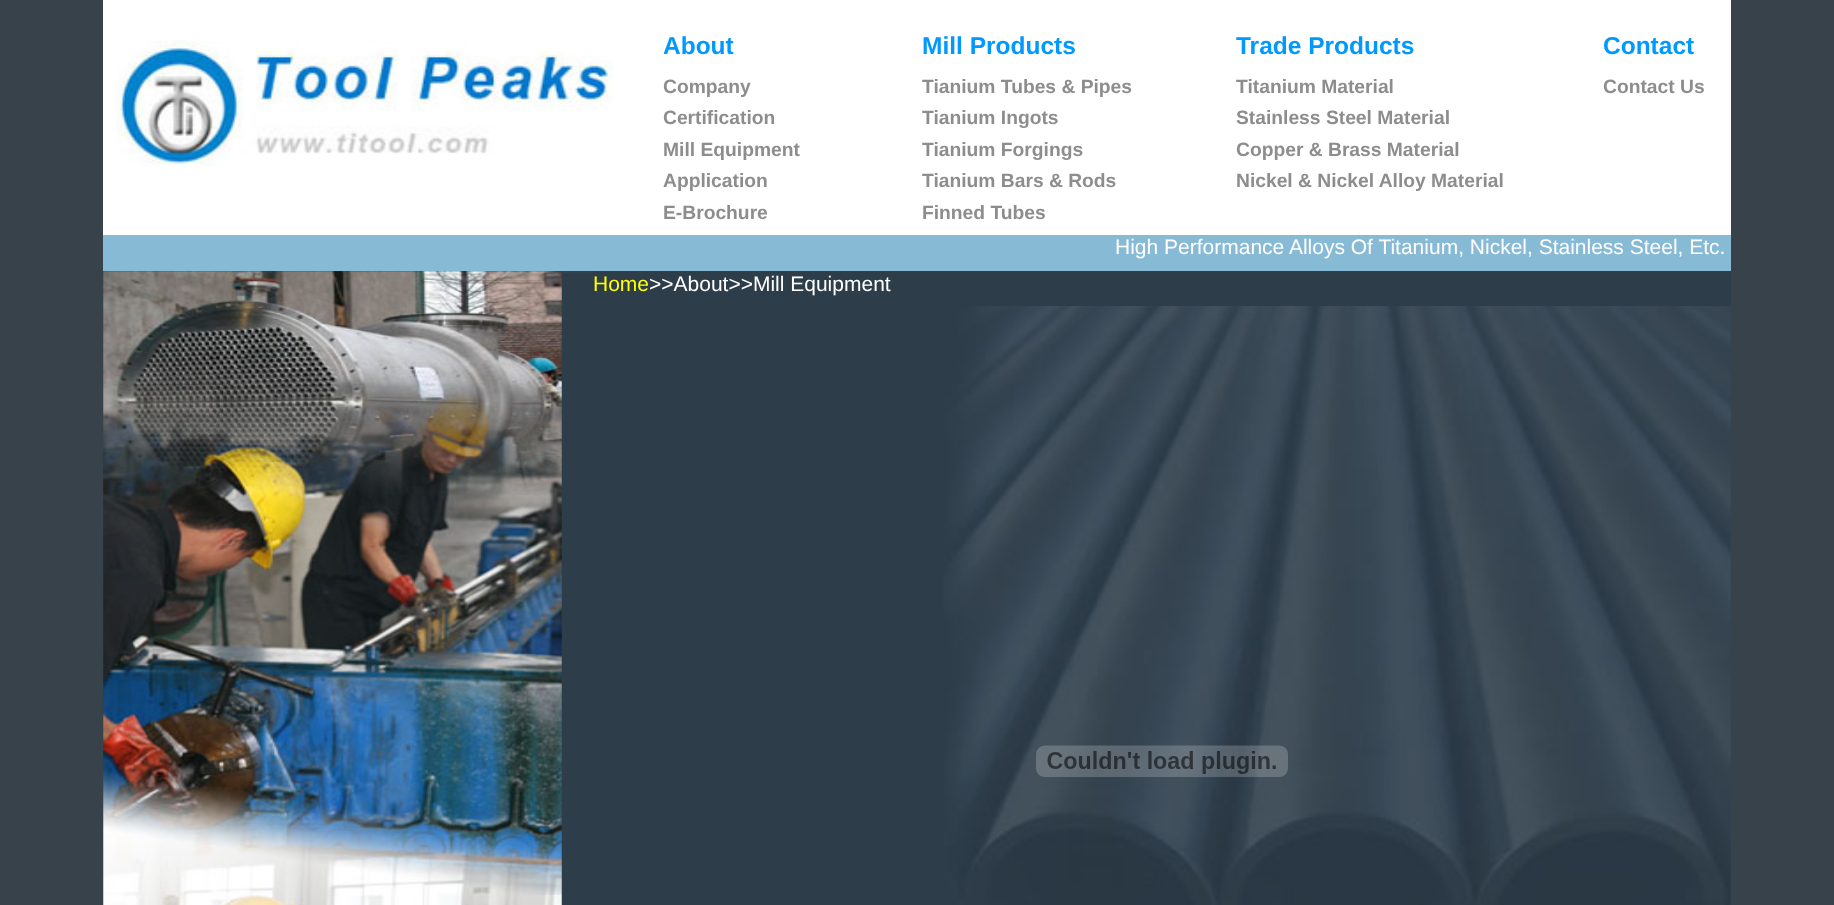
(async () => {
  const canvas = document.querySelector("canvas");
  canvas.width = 1834;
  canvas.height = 905;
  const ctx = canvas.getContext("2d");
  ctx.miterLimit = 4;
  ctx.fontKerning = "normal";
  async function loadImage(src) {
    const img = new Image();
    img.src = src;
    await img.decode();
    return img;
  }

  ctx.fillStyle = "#38424b";
  ctx.fillRect(0, 0, 1834, 905);
  ctx.fillStyle = "#ffffff";
  ctx.fillRect(103, 0, 1628, 235);
  ctx.drawImage(await loadImage("img/1.png"), 117, 40, 496, 127);
  ctx.fillStyle = "#87bad5";
  ctx.fillRect(103, 235, 1628, 36);
  ctx.drawImage(await loadImage("img/2.png"), 103, 271, 1628, 634);
  ctx.drawImage(await loadImage("img/3.png"), 103, 271, 459, 634);
  ctx.fillStyle = "#2d3d4a";
  ctx.fillRect(593, 271, 1138, 35);
  ctx.drawImage(await loadImage("img/4.png"), 1036, 745, 252, 32);
  ctx.font = "bold 24.5px Liberation Sans";
  ctx.fillStyle = "#0099ff";
  for (const [text, x, y] of [
    ["About", 663, 54],
    ["Mill Products", 922, 54],
    ["Trade Products", 1236, 54],
    ["Contact", 1603, 54],
  ]) {
    ctx.fillText(text, x, y);
  }
  ctx.font = "bold 19.25px Liberation Sans";
  ctx.fillStyle = "#8d8d8d";
  for (const [text, x, y] of [
    ["Company", 663, 93],
    ["Tianium Tubes & Pipes", 922, 93],
    ["Titanium Material", 1236, 93],
    ["Contact Us", 1603, 93],
    ["Certification", 663, 124],
    ["Tianium Ingots", 922, 124],
    ["Stainless Steel Material", 1236, 124],
    ["Mill Equipment", 663, 156],
    ["Tianium Forgings", 922, 156],
    ["Copper & Brass Material", 1236, 156],
    ["Application", 663, 187],
    ["Tianium Bars & Rods", 922, 187],
    ["Nickel & Nickel Alloy Material", 1236, 187],
    ["E-Brochure", 663, 219],
    ["Finned Tubes", 922, 219],
  ]) {
    ctx.fillText(text, x, y);
  }
  ctx.font = "21px Liberation Sans";
  ctx.fillStyle = "#ffffff";
  ctx.fillText("High Performance Alloys Of Titanium, Nickel, Stainless Steel, Etc.", 1115, 254);
  ctx.fillStyle = "#ffff00";
  ctx.fillText("Home", 593, 291);
  ctx.fillStyle = "#ffffff";
  ctx.fillText(">>About>>Mill Equipment", 649, 291);
})();
